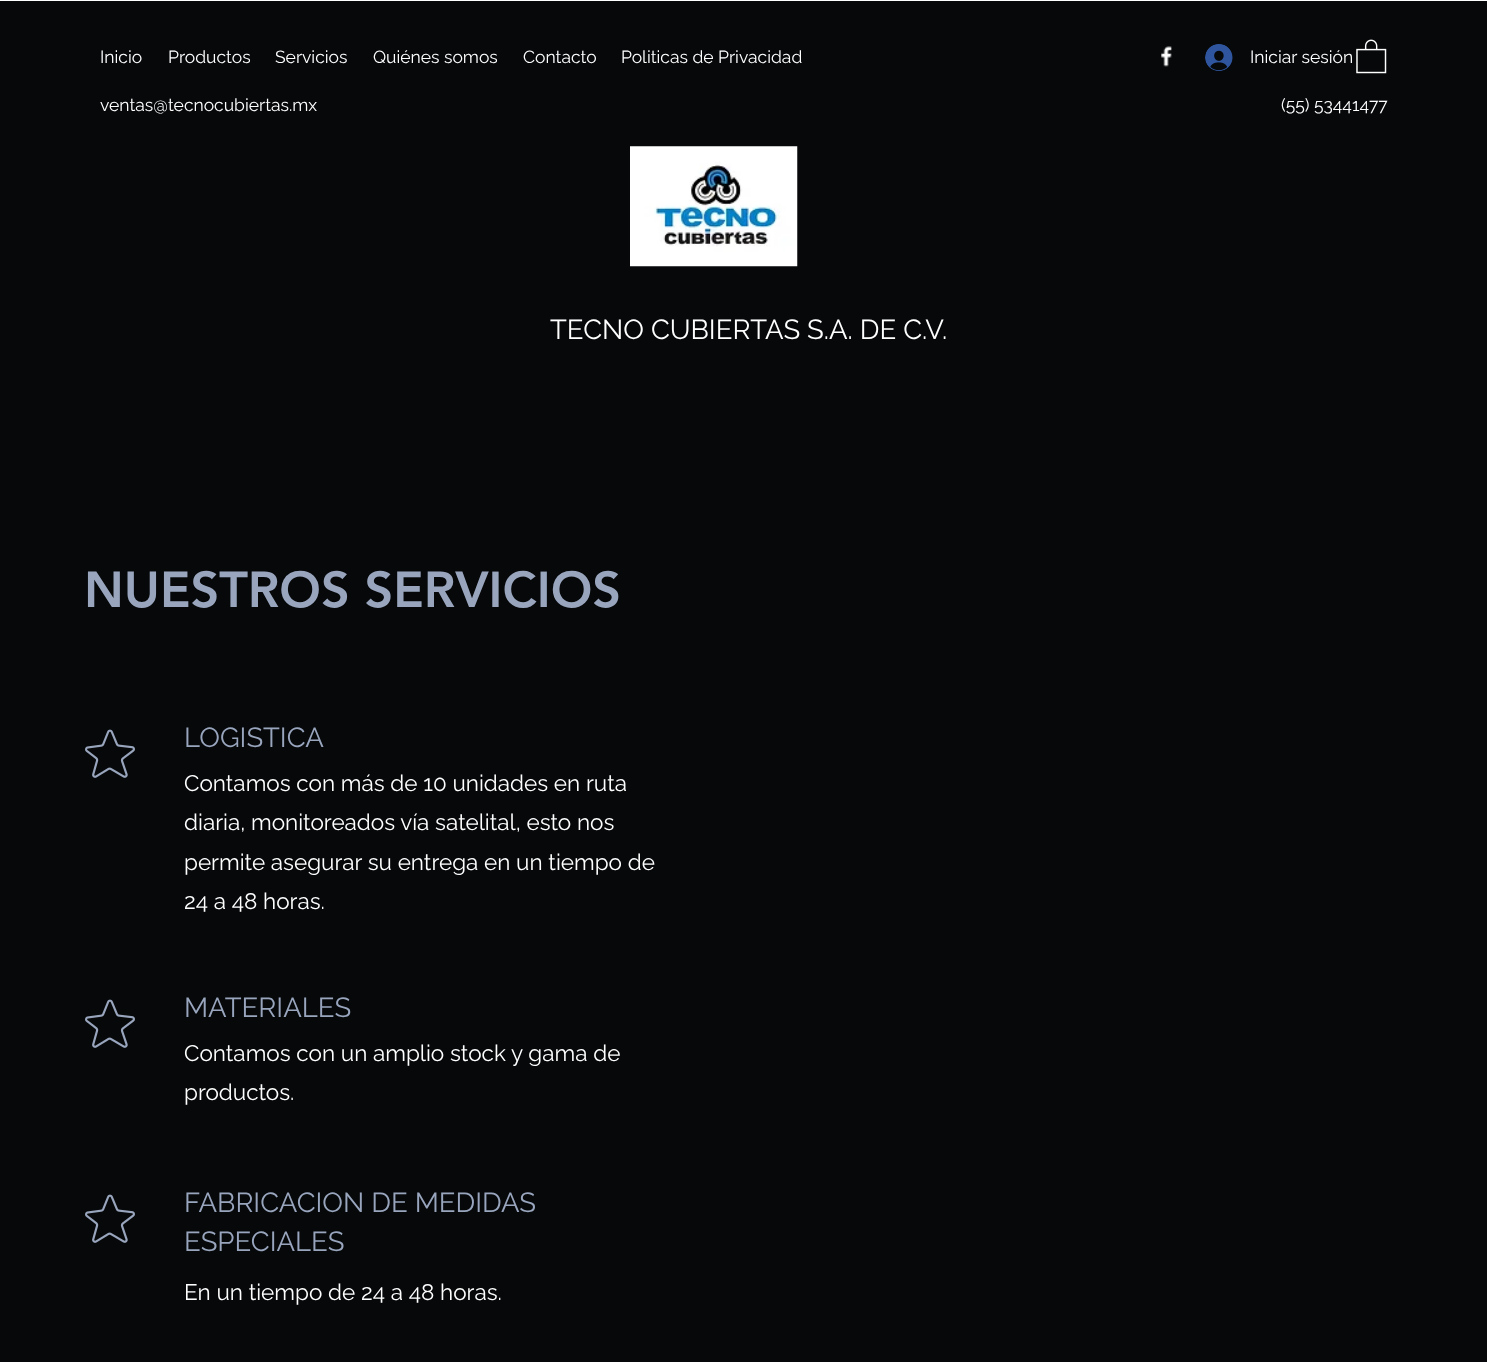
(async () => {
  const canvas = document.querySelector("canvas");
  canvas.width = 1487;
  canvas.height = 1362;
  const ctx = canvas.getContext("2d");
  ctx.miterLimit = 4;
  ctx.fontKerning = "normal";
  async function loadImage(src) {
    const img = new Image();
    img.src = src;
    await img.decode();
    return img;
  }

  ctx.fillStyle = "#ffffff";
  ctx.fillRect(0, 0, 1487, 1362);
  ctx.fillStyle = "#06080a";
  ctx.fillRect(0, 1, 1487, 1361);
  ctx.drawImage(await loadImage("img/1.png"), 1161, 46, 11, 21);
  ctx.drawImage(await loadImage("img/2.png"), 1205, 44, 28, 27);
  ctx.drawImage(await loadImage("img/3.png"), 1356, 39, 31, 35);
  ctx.drawImage(await loadImage("img/4.png"), 630, 146, 168, 121);
  ctx.drawImage(await loadImage("img/5.png"), 85, 729, 50, 49);
  ctx.drawImage(await loadImage("img/5.png"), 85, 999, 50, 49);
  ctx.drawImage(await loadImage("img/5.png"), 85, 1194, 50, 49);
  ctx.font = "17.5px Raleway";
  ctx.fillStyle = "#ffffff";
  for (const [text, x, y] of [
    ["Inicio", 100, 63],
    ["Productos", 168, 63],
    ["Servicios", 275, 63],
    ["Quiénes somos", 373, 63],
    ["Contacto", 523, 63],
    ["Politicas de Privacidad", 621, 63],
    ["Iniciar sesión", 1250, 63],
    ["ventas@tecnocubiertas.mx", 100, 111],
    ["(55) 53441477", 1281, 111],
  ]) {
    ctx.fillText(text, x, y);
  }
  ctx.font = "27.5px Raleway";
  ctx.fillText("TECNO CUBIERTAS S.A. DE C.V.", 550, 339);
  ctx.font = "900 50px 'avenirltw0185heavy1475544'";
  ctx.fillStyle = "#98a5bd";
  ctx.fillText("NUESTROS SERVICIOS", 84, 607);
  ctx.font = "27.5px Raleway";
  ctx.fillText("LOGISTICA", 184, 747);
  ctx.font = "22.5px Raleway";
  ctx.fillStyle = "#ffffff";
  for (const [text, x, y] of [
    ["Contamos con más de 10 unidades en ruta", 184, 791],
    ["diaria, monitoreados vía satelital, esto nos", 184, 830],
    ["permite asegurar su entrega en un tiempo de", 184, 870],
    ["24 a 48 horas.", 184, 909],
  ]) {
    ctx.fillText(text, x, y);
  }
  ctx.font = "27.5px Raleway";
  ctx.fillStyle = "#98a5bd";
  ctx.fillText("MATERIALES", 184, 1017);
  ctx.font = "22.5px Raleway";
  ctx.fillStyle = "#ffffff";
  ctx.fillText("Contamos con un amplio stock y gama de", 184, 1061);
  ctx.fillText("productos.", 184, 1100);
  ctx.font = "27.5px Raleway";
  ctx.fillStyle = "#98a5bd";
  ctx.fillText("FABRICACION DE MEDIDAS", 184, 1212);
  ctx.fillText("ESPECIALES", 184, 1251);
  ctx.font = "22.5px Raleway";
  ctx.fillStyle = "#ffffff";
  ctx.fillText("En un tiempo de 24 a 48 horas.", 184, 1300);
})();
